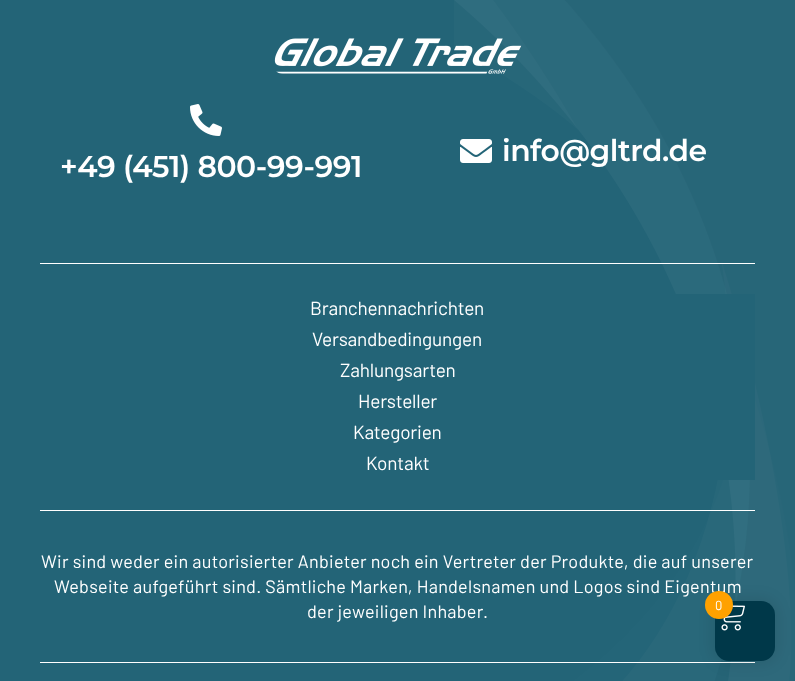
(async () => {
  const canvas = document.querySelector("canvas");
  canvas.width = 795;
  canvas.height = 681;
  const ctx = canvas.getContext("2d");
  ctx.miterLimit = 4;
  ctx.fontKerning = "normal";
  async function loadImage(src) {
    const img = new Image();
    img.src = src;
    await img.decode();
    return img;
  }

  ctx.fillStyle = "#236477";
  ctx.fillRect(0, 0, 795, 681);
  ctx.drawImage(await loadImage("img/1.png"), 454, 0, 341, 681);
  ctx.drawImage(await loadImage("img/2.png"), 274, 38, 248, 36);
  ctx.drawImage(await loadImage("img/3.png"), 190, 104, 32, 32);
  ctx.drawImage(await loadImage("img/4.png"), 460, 139, 32, 24);
  for (const [x, y, w, h, color] of [
    [40, 263, 715, 1, "#ffffff"],
    [40, 510, 715, 1, "#ffffff"],
    [676, 294, 79, 186, "#236477"],
    [40, 662, 715, 1, "#ffffff"],
  ]) {
    ctx.fillStyle = color;
    ctx.fillRect(x, y, w, h);
  }
  ctx.fillStyle = "rgba(0, 0, 0, 0.1)";
  ctx.filter = "blur(7.5px)";
  ctx.beginPath();
  ctx.roundRect(713, 599, 64, 64, 16);
  ctx.fill();
  ctx.filter = "none";
  ctx.fillStyle = "#003849";
  ctx.beginPath();
  ctx.roundRect(715, 601, 60, 60, 14);
  ctx.fill();
  ctx.drawImage(await loadImage("img/5.png"), 721, 605, 24, 26);
  ctx.letterSpacing = "-0.5px";
  ctx.font = "600 29.9px Montserrat";
  ctx.fillStyle = "#ffffff";
  ctx.fillText("+49 (451) 800-99-991", 60, 177);
  ctx.fillText("info@gltrd.de", 502, 161);
  ctx.letterSpacing = "-0.2px";
  ctx.font = "19px Barlow";
  for (const [text, x, y] of [
    ["Branchennachrichten", 310, 315],
    ["Versandbedingungen", 312, 346],
    ["Zahlungsarten", 340, 377],
    ["Hersteller", 358, 408],
    ["Kategorien", 353, 439],
    ["Kontakt", 366, 470],
  ]) {
    ctx.fillText(text, x, y);
  }
  ctx.letterSpacing = "0.27px";
  ctx.font = "18px Barlow";
  for (const [text, x, y] of [
    ["Wir sind weder ein autorisierter Anbieter noch ein Vertreter der Produkte, die auf unserer", 41, 568],
    ["Webseite aufgeführt sind. Sämtliche Marken, Handelsnamen und Logos sind Eigentum", 54, 593],
    ["der jeweiligen Inhaber.", 307, 618],
  ]) {
    ctx.fillText(text, x, y);
  }
  ctx.fillStyle = "#ffa100";
  ctx.beginPath();
  ctx.arc(719, 605, 14, 0, Math.PI * 2);
  ctx.fill();
  ctx.font = "13px Barlow";
  ctx.fillStyle = "#ffffff";
  ctx.fillText("0", 715, 610);
})();
